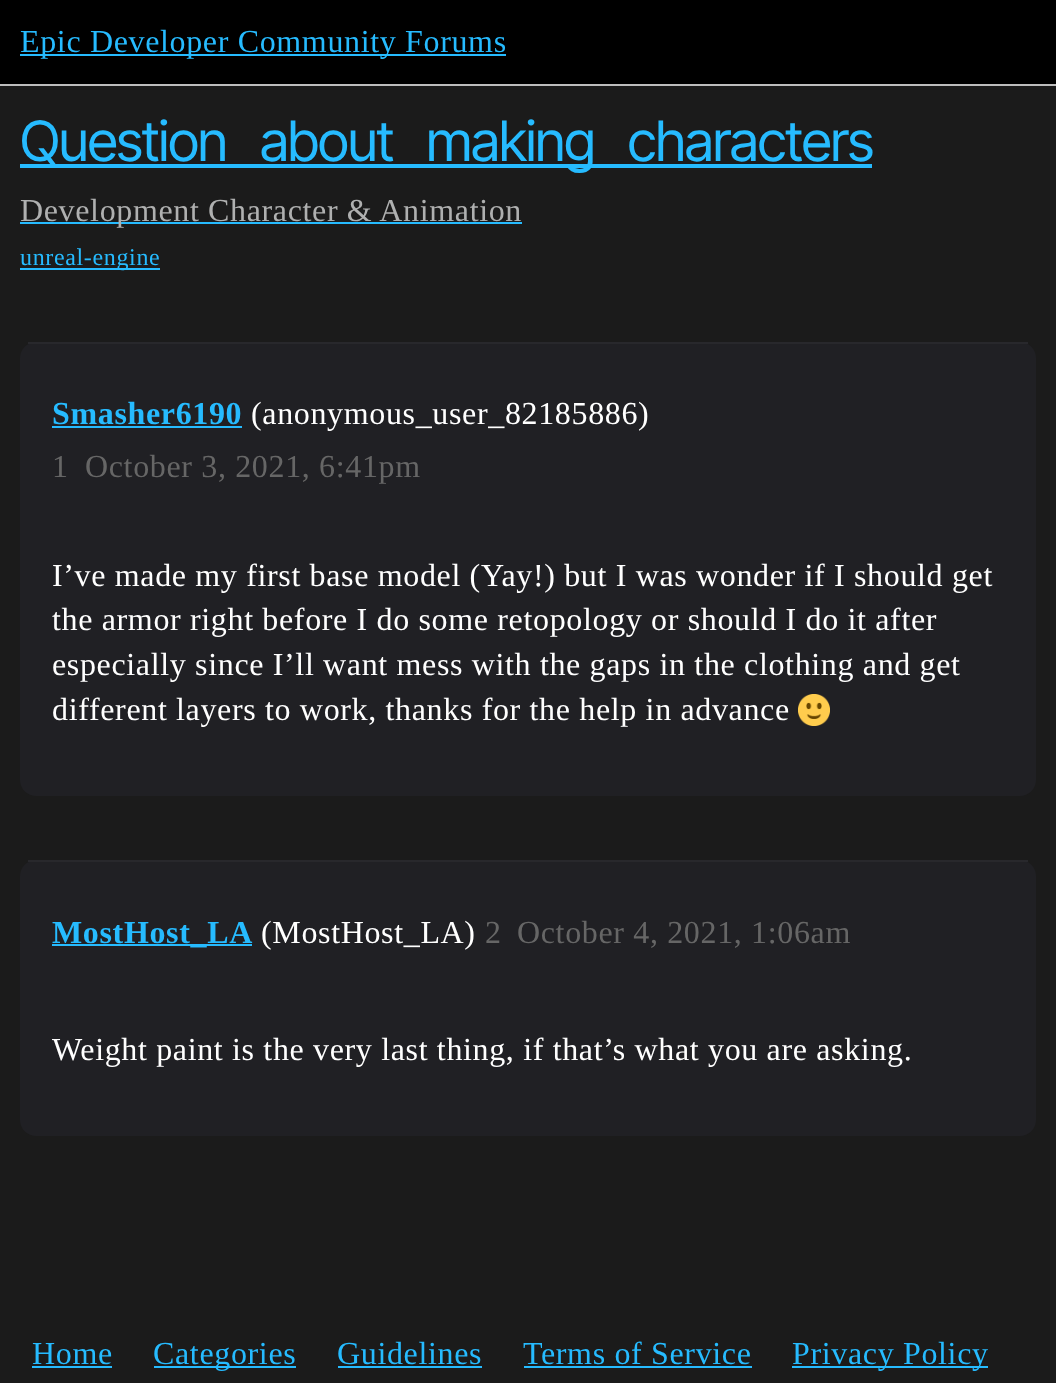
(async () => {
  const canvas = document.querySelector("canvas");
  canvas.width = 1056;
  canvas.height = 1383;
  const ctx = canvas.getContext("2d");
  ctx.miterLimit = 4;
  ctx.fontKerning = "normal";
  async function loadImage(src) {
    const img = new Image();
    img.src = src;
    await img.decode();
    return img;
  }

  ctx.fillStyle = "#1b1b1b";
  ctx.fillRect(0, 0, 1056, 1383);
  for (const [x, y, w, h, color] of [
    [0, 0, 1056, 84, "#000000"],
    [0, 84, 1056, 2, "#bdbdbd"],
    [20, 54, 486, 2, "#26bbff"],
    [20, 164, 852, 4, "#26bbff"],
    [20, 222, 502, 2, "#26bbff"],
    [20, 268, 140, 2, "#26bbff"],
  ]) {
    ctx.fillStyle = color;
    ctx.fillRect(x, y, w, h);
  }
  ctx.fillStyle = "#202024";
  ctx.beginPath();
  ctx.roundRect(20, 342, 1016, 454, 16);
  ctx.fill();
  ctx.fillStyle = "#28282c";
  ctx.fillRect(28, 342, 1000, 2);
  ctx.fillStyle = "#26bbff";
  ctx.fillRect(52, 426, 190, 2);
  ctx.drawImage(await loadImage("img/1.png"), 798, 694, 32, 32);
  ctx.fillStyle = "#202024";
  ctx.beginPath();
  ctx.roundRect(20, 860, 1016, 276, 16);
  ctx.fill();
  for (const [x, y, w, h, color] of [
    [28, 860, 1000, 2, "#28282c"],
    [52, 944, 200, 2, "#26bbff"],
    [32, 1366, 80, 2, "#26bbff"],
    [154, 1366, 142, 2, "#26bbff"],
    [338, 1366, 144, 2, "#26bbff"],
    [524, 1366, 228, 2, "#26bbff"],
    [792, 1366, 196, 2, "#26bbff"],
  ]) {
    ctx.fillStyle = color;
    ctx.fillRect(x, y, w, h);
  }
  ctx.letterSpacing = "0.65px";
  ctx.font = "32px Liberation Serif";
  ctx.fillText("Epic Developer Community Forums", 20, 52);
  ctx.letterSpacing = "-1px";
  ctx.wordSpacing = "21px";
  ctx.font = "55.75px Inter Tight";
  ctx.fillText("Question about making characters", 20, 161);
  ctx.letterSpacing = "0.65px";
  ctx.wordSpacing = "0px";
  ctx.font = "32px Liberation Serif";
  ctx.fillStyle = "#afb0b0";
  ctx.fillText("Development", 20, 221);
  ctx.fillText("Character & Animation", 208, 221);
  ctx.font = "24px Liberation Serif";
  ctx.fillStyle = "#26bbff";
  ctx.fillText("unreal-engine", 20, 265);
  ctx.font = "bold 32px Liberation Serif";
  ctx.fillText("Smasher6190", 52, 424);
  ctx.font = "32px Liberation Serif";
  ctx.fillStyle = "#ffffff";
  ctx.fillText("(anonymous_user_82185886)", 251, 424);
  ctx.fillStyle = "#666666";
  ctx.fillText("1", 52, 477);
  ctx.fillText("October 3, 2021, 6:41pm", 85, 477);
  ctx.fillStyle = "#ffffff";
  for (const [text, x, y] of [
    ["I’ve made my first base model (Yay!) but I was wonder if I should get", 52, 586],
    ["the armor right before I do some retopology or should I do it after", 52, 630],
    ["especially since I’ll want mess with the gaps in the clothing and get", 52, 675],
    ["different layers to work, thanks for the help in advance", 52, 720],
  ]) {
    ctx.fillText(text, x, y);
  }
  ctx.font = "bold 32px Liberation Serif";
  ctx.fillStyle = "#26bbff";
  ctx.fillText("MostHost_LA", 52, 943);
  ctx.font = "32px Liberation Serif";
  ctx.fillStyle = "#ffffff";
  ctx.fillText("(MostHost_LA)", 261, 943);
  ctx.fillStyle = "#666666";
  ctx.fillText("2", 485, 943);
  ctx.fillText("October 4, 2021, 1:06am", 517, 943);
  ctx.fillStyle = "#ffffff";
  ctx.fillText("Weight paint is the very last thing, if that’s what you are asking.", 52, 1060);
  ctx.fillStyle = "#26bbff";
  for (const [text, x, y] of [
    ["Home", 32, 1364],
    ["Categories", 153, 1364],
    ["Guidelines", 337, 1364],
    ["Terms of Service", 523, 1364],
    ["Privacy Policy", 792, 1364],
  ]) {
    ctx.fillText(text, x, y);
  }
})();
